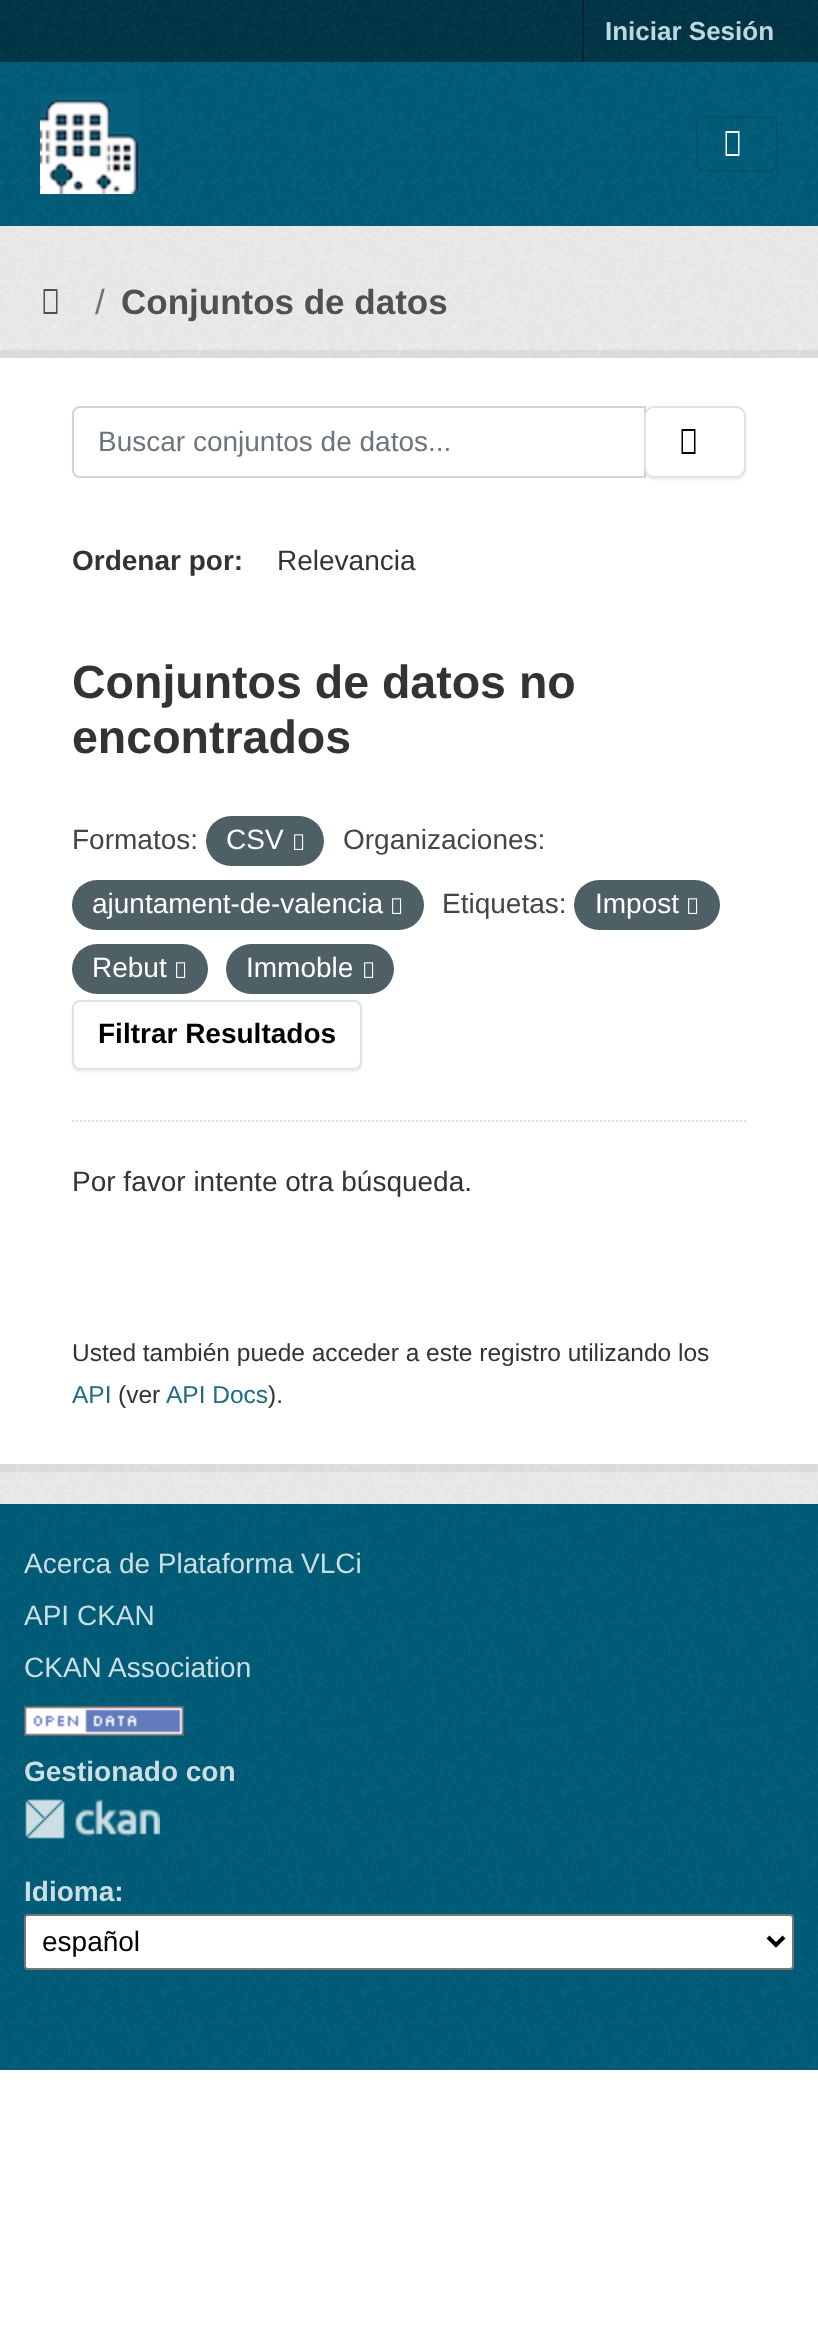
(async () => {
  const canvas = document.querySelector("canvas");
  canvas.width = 818;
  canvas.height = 2344;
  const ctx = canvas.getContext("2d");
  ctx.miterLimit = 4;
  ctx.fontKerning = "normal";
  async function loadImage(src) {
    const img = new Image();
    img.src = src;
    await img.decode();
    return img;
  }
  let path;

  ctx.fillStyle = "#ffffff";
  ctx.fillRect(0, 0, 818, 2344);
  ctx.fillStyle = "#003647";
  ctx.fillRect(0, 0, 818, 62);
  ctx.drawImage(await loadImage("img/1.png"), 0, 0, 818, 62);
  ctx.fillStyle = "#00232e";
  ctx.fillRect(582, 0, 2, 62);
  ctx.fillStyle = "#005d7a";
  ctx.fillRect(0, 62, 818, 164);
  ctx.drawImage(await loadImage("img/2.png"), 0, 62, 818, 164);
  ctx.drawImage(await loadImage("img/3.png"), 40, 94, 100, 100);
  ctx.beginPath();
  ctx.roundRect(697, 117, 80, 54, 7);
  ctx.strokeStyle = "rgba(0, 0, 0, 0.1)";
  ctx.lineWidth = 2;
  ctx.stroke();
  ctx.fillStyle = "#ffffff";
  path = new Path2D("M725.5 156V131H739.5V156ZM727 154H738V133H727Z");
  ctx.fill(path);
  ctx.fillStyle = "#eeeeee";
  ctx.fillRect(0, 226, 818, 1278);
  ctx.drawImage(await loadImage("img/4.png"), 0, 226, 818, 1278);
  ctx.fillStyle = "#505050";
  path = new Path2D("M43.5 314V289H57.5V314ZM45 312H56V291H45Z");
  ctx.fill(path);
  ctx.strokeStyle = "rgba(0, 0, 0, 0.05)";
  ctx.lineWidth = 8;
  ctx.strokeRect(-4, 354, 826, 1114);
  ctx.fillStyle = "#ffffff";
  ctx.fillRect(0, 358, 818, 1106);
  path = new Path2D("M72 1121H746");
  ctx.strokeStyle = "#dddddd";
  ctx.lineWidth = 2;
  ctx.setLineDash([2, 2]);
  ctx.stroke(path);
  ctx.beginPath();
  ctx.roundRect(73, 407, 572, 70, [7, 0, 0, 7]);
  ctx.strokeStyle = "#ced4da";
  ctx.setLineDash([]);
  ctx.stroke();
  ctx.fillStyle = "rgba(0, 0, 0, 0.07)";
  ctx.filter = "blur(1px)";
  ctx.beginPath();
  ctx.roundRect(644, 408, 102, 72, 10);
  ctx.fill();
  ctx.filter = "none";
  ctx.fillStyle = "#ffffff";
  ctx.beginPath();
  ctx.roundRect(645, 407, 100, 70, 9);
  ctx.fill();
  ctx.strokeStyle = "#dee2e6";
  ctx.stroke();
  ctx.fillStyle = "#000000";
  path = new Path2D("M681.5 454V429H695.5V454ZM683 452H694V431H683Z");
  ctx.fill(path);
  ctx.fillStyle = "#4e5f65";
  ctx.beginPath();
  ctx.roundRect(206, 816, 118, 50, 25);
  ctx.fill();
  ctx.drawImage(await loadImage("img/5.png"), 294, 834, 10, 16);
  ctx.beginPath();
  ctx.roundRect(72, 880, 352, 50, 25);
  ctx.fill();
  ctx.drawImage(await loadImage("img/5.png"), 392, 898, 10, 16);
  ctx.beginPath();
  ctx.roundRect(574, 880, 146, 50, 25);
  ctx.fill();
  ctx.drawImage(await loadImage("img/5.png"), 688, 898, 10, 16);
  ctx.beginPath();
  ctx.roundRect(72, 944, 136, 50, 25);
  ctx.fill();
  ctx.drawImage(await loadImage("img/5.png"), 176, 962, 10, 16);
  ctx.beginPath();
  ctx.roundRect(226, 944, 168, 50, 25);
  ctx.fill();
  ctx.drawImage(await loadImage("img/5.png"), 364, 962, 10, 16);
  ctx.fillStyle = "rgba(0, 0, 0, 0.07)";
  ctx.filter = "blur(1px)";
  ctx.beginPath();
  ctx.roundRect(72, 1002, 290, 70, 8);
  ctx.fill();
  ctx.filter = "none";
  ctx.fillStyle = "#ffffff";
  ctx.beginPath();
  ctx.roundRect(73, 1001, 288, 68, 7);
  ctx.fill();
  ctx.stroke();
  ctx.fillStyle = "#005d7a";
  ctx.fillRect(0, 1504, 818, 566);
  ctx.drawImage(await loadImage("img/6.png"), 0, 1504, 818, 566);
  ctx.drawImage(await loadImage("img/7.png"), 24, 1706, 160, 30);
  ctx.drawImage(await loadImage("img/8.png"), 25, 1799, 135, 40);
  ctx.fillStyle = "#ffffff";
  ctx.beginPath();
  ctx.roundRect(25, 1915, 768, 54, 3);
  ctx.fill();
  ctx.strokeStyle = "#767676";
  ctx.stroke();
  path = new Path2D("M768 1937L776 1945L784 1937");
  ctx.strokeStyle = "#000000";
  ctx.lineWidth = 4;
  ctx.stroke(path);
  ctx.font = "bold 26px Liberation Sans";
  ctx.fillStyle = "#bfd7de";
  ctx.fillText("Iniciar Sesión", 605, 40);
  ctx.font = "35px Liberation Sans";
  ctx.fillStyle = "#6c757d";
  ctx.fillText("/", 95, 314);
  ctx.font = "bold 35px Liberation Sans";
  ctx.fillStyle = "#505050";
  ctx.fillText("Conjuntos de datos", 121, 314);
  ctx.font = "28px Liberation Sans";
  ctx.fillStyle = "#6c757d";
  ctx.fillText("Buscar conjuntos de datos...", 98, 451);
  ctx.font = "bold 28px Liberation Sans";
  ctx.fillStyle = "#333333";
  ctx.fillText("Ordenar por:", 72, 570);
  ctx.font = "28px Liberation Sans";
  ctx.fillText("Relevancia", 277, 570);
  ctx.font = "bold 46.5px Liberation Sans";
  ctx.fillText("Conjuntos de datos no", 72, 698);
  ctx.fillText("encontrados", 72, 753);
  ctx.font = "28px Liberation Sans";
  ctx.fillStyle = "#444444";
  ctx.fillText("Formatos:", 72, 849);
  ctx.fillStyle = "#ffffff";
  ctx.fillText("CSV", 226, 849);
  ctx.fillStyle = "#444444";
  ctx.fillText("Organizaciones:", 343, 849);
  ctx.fillStyle = "#ffffff";
  ctx.fillText("ajuntament-de-valencia", 92, 913);
  ctx.fillStyle = "#444444";
  ctx.fillText("Etiquetas:", 442, 913);
  ctx.fillStyle = "#ffffff";
  for (const [text, x, y] of [
    ["Impost", 595, 913],
    ["Rebut", 92, 977],
    ["Immoble", 246, 977],
  ]) {
    ctx.fillText(text, x, y);
  }
  ctx.font = "bold 28px Liberation Sans";
  ctx.fillStyle = "#000000";
  ctx.fillText("Filtrar Resultados", 98, 1043);
  ctx.font = "28px Liberation Sans";
  ctx.fillStyle = "#333333";
  ctx.fillText("Por favor intente otra búsqueda.", 72, 1191);
  ctx.font = "24.5px Liberation Sans";
  ctx.fillText("Usted también puede acceder a este registro utilizando los", 72, 1361);
  ctx.fillStyle = "#206b82";
  ctx.fillText("API", 72, 1403);
  ctx.fillStyle = "#333333";
  ctx.fillText("(ver", 118, 1403);
  ctx.fillStyle = "#206b82";
  ctx.fillText("API Docs", 166, 1403);
  ctx.fillStyle = "#333333";
  ctx.fillText(").", 268, 1403);
  ctx.font = "28px Liberation Sans";
  ctx.fillStyle = "#ccdee3";
  for (const [text, x, y] of [
    ["Acerca de Plataforma VLCi", 24, 1573],
    ["API CKAN", 24, 1625],
    ["CKAN Association", 24, 1677],
  ]) {
    ctx.fillText(text, x, y);
  }
  ctx.font = "bold 28px Liberation Sans";
  ctx.fillText("Gestionado con", 24, 1781);
  ctx.fillText("Idioma:", 24, 1901);
  ctx.font = "28px Liberation Sans";
  ctx.fillStyle = "#000000";
  ctx.fillText("español", 42, 1951);
})();
